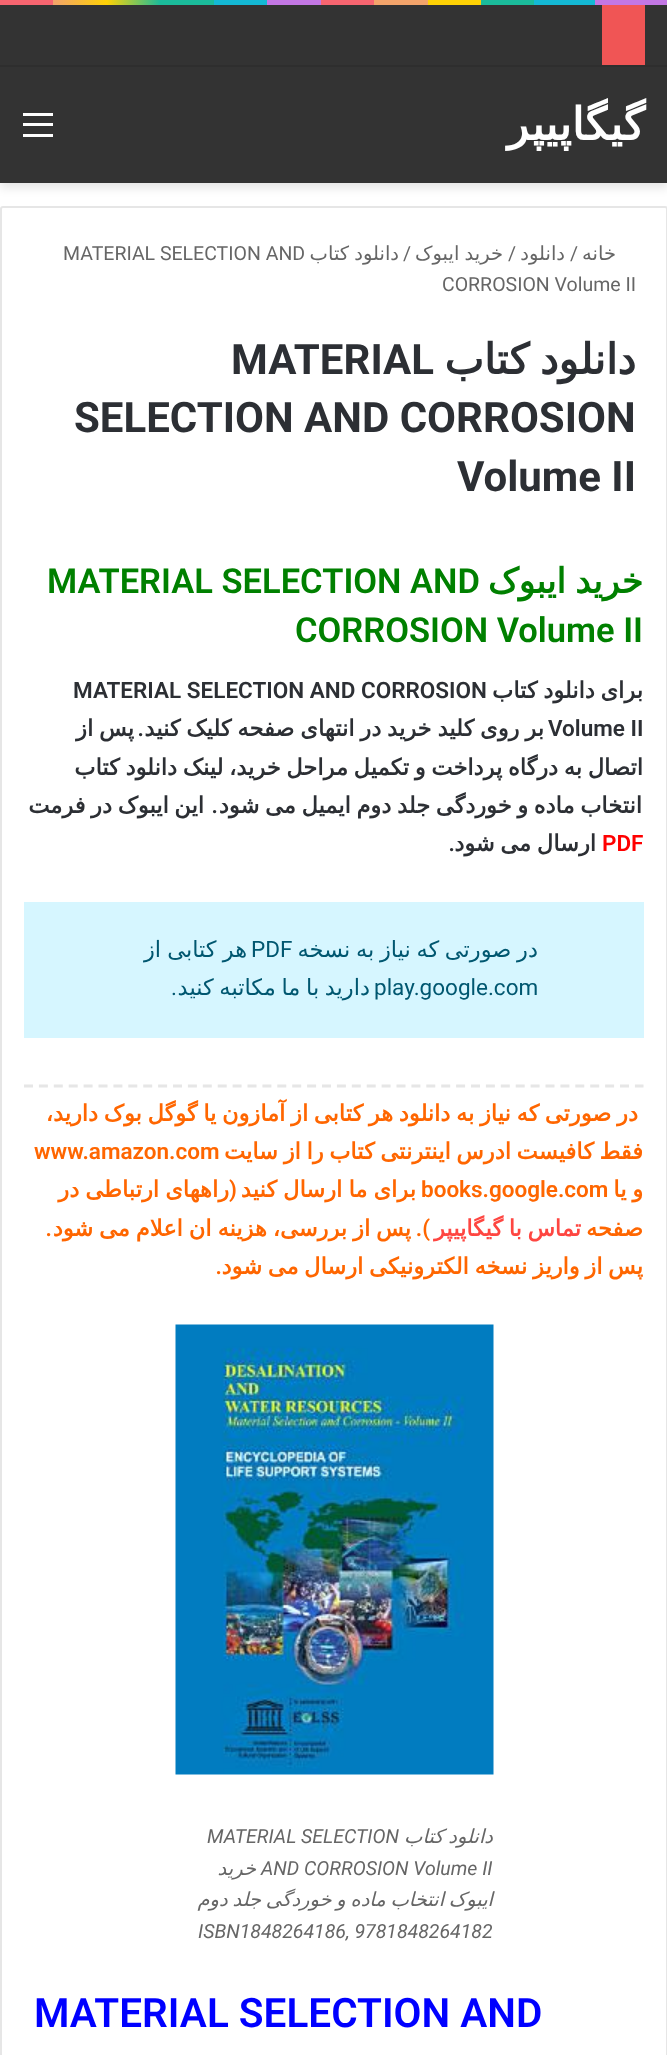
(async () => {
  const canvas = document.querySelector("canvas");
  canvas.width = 667;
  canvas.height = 2055;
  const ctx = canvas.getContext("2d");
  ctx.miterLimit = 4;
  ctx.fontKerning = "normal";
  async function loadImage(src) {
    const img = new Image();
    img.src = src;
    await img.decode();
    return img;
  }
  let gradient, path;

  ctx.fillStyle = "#ffffff";
  ctx.fillRect(0, 0, 667, 2055);
  gradient = ctx.createLinearGradient(0, 2.3, 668, 2.2);
  gradient.addColorStop(0, "#f76570");
  gradient.addColorStop(0.08, "#f76570");
  gradient.addColorStop(0.08, "#f3a46b");
  gradient.addColorStop(0.16, "#ffd205");
  gradient.addColorStop(0.24, "#1bbc9b");
  gradient.addColorStop(0.32, "#1bbc9b");
  gradient.addColorStop(0.32, "#14b9d5");
  gradient.addColorStop(0.4, "#14b9d5");
  gradient.addColorStop(0.4, "#c377e4");
  gradient.addColorStop(0.48, "#c377e4");
  gradient.addColorStop(0.48, "#f76570");
  gradient.addColorStop(0.56, "#f76570");
  gradient.addColorStop(0.56, "#f3a46b");
  gradient.addColorStop(0.64, "#f3a46b");
  gradient.addColorStop(0.64, "#ffd205");
  gradient.addColorStop(0.72, "#ffd205");
  gradient.addColorStop(0.72, "#1bbc9b");
  gradient.addColorStop(0.8, "#1bbc9b");
  gradient.addColorStop(0.8, "#14b9d5");
  gradient.addColorStop(0.89, "#14b9d5");
  gradient.addColorStop(0.89, "#c377e4");
  gradient.addColorStop(1, "#c377e4");
  ctx.fillStyle = gradient;
  ctx.fillRect(0, 0, 667, 5);
  ctx.fillStyle = "rgba(0, 0, 0, 0.1)";
  ctx.filter = "blur(5px)";
  ctx.beginPath();
  ctx.rect(0, 71, 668, 117);
  ctx.fill();
  ctx.filter = "none";
  for (const [x, y, w, h, color] of [
    [0, 5, 667, 60, "#333333"],
    [0, 65, 667, 2, "#2e2e2e"],
    [602, 5, 43, 60, "#f05555"],
    [0, 67, 667, 116, "#333333"],
    [23, 123, 30, 3, "#ffffff"],
    [23, 113, 30, 3, "#ffffff"],
    [23, 134, 30, 3, "#ffffff"],
  ]) {
    ctx.fillStyle = color;
    ctx.fillRect(x, y, w, h);
  }
  ctx.beginPath();
  ctx.roundRect(1, 207, 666, 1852, 2);
  ctx.strokeStyle = "#e6e6e6";
  ctx.lineWidth = 2;
  ctx.stroke();
  ctx.fillStyle = "#d6f6ff";
  ctx.fillRect(24, 902, 620, 136);
  path = new Path2D("M24 1086H643.5");
  ctx.lineWidth = 3;
  ctx.setLineDash([9, 5.9]);
  ctx.stroke(path);
  ctx.drawImage(await loadImage("img/1.png"), 175, 1324, 319, 451);
  ctx.direction = "rtl";
  ctx.font = "bold 45px DejaVu Sans";
  ctx.fillStyle = "#ffffff";
  ctx.fillText("گیگاپیپر", 645, 140);
  ctx.font = "19.5px DejaVu Sans";
  ctx.fillStyle = "#666666";
  ctx.fillText("خانه", 616, 260);
  ctx.direction = "ltr";
  ctx.font = "19.5px Roboto";
  ctx.fillText("/", 570, 260);
  ctx.direction = "rtl";
  ctx.font = "19.5px DejaVu Sans";
  ctx.fillText("دانلود", 565, 260);
  ctx.direction = "ltr";
  ctx.font = "19.5px Roboto";
  ctx.fillText("/", 508, 260);
  ctx.wordSpacing = "-1px";
  ctx.direction = "rtl";
  ctx.font = "19.5px DejaVu Sans";
  ctx.fillText("خرید ایبوک", 503, 260);
  ctx.wordSpacing = "0px";
  ctx.direction = "ltr";
  ctx.font = "19.5px Roboto";
  ctx.fillText("/", 403, 260);
  ctx.wordSpacing = "-1px";
  ctx.direction = "rtl";
  ctx.font = "19.5px DejaVu Sans";
  ctx.fillText("دانلود کتاب", 399, 260);
  ctx.wordSpacing = "0px";
  ctx.direction = "ltr";
  ctx.font = "19.5px Roboto";
  ctx.fillText("MATERIAL SELECTION AND", 63, 260);
  ctx.fillText("CORROSION Volume II", 442, 291);
  ctx.wordSpacing = "-3px";
  ctx.direction = "rtl";
  ctx.font = "bold 42px DejaVu Sans";
  ctx.fillStyle = "#2c2f34";
  ctx.fillText("دانلود کتاب", 636, 374);
  ctx.wordSpacing = "0px";
  ctx.direction = "ltr";
  ctx.font = "bold 42px Roboto";
  for (const [text, x, y] of [
    ["MATERIAL", 231, 374],
    ["SELECTION AND CORROSION", 74, 432],
    ["Volume II", 457, 491],
  ]) {
    ctx.fillText(text, x, y);
  }
  ctx.wordSpacing = "-2px";
  ctx.direction = "rtl";
  ctx.font = "bold 34.5px DejaVu Sans";
  ctx.fillStyle = "#008000";
  ctx.fillText("خرید ایبوک", 643, 593);
  ctx.wordSpacing = "0px";
  ctx.direction = "ltr";
  ctx.font = "600 34.5px Roboto";
  ctx.fillText("MATERIAL SELECTION AND", 47, 593);
  ctx.fillText("CORROSION Volume II", 295, 642);
  ctx.wordSpacing = "-1.5px";
  ctx.direction = "rtl";
  ctx.font = "bold 22.5px DejaVu Sans";
  ctx.fillStyle = "#2c2f34";
  ctx.fillText("برای دانلود کتاب", 643, 698);
  ctx.wordSpacing = "0px";
  ctx.direction = "ltr";
  ctx.font = "600 22.5px Roboto";
  ctx.fillText("MATERIAL SELECTION AND CORROSION", 73, 698);
  ctx.wordSpacing = "-1.25px";
  ctx.direction = "rtl";
  ctx.font = "bold 22.5px DejaVu Sans";
  ctx.fillText("بر روی کلید خرید در انتهای صفحه کلیک کنید", 544, 736);
  ctx.wordSpacing = "0px";
  ctx.direction = "ltr";
  ctx.font = "600 22.5px Roboto";
  ctx.fillText("Volume II", 548, 736);
  ctx.direction = "rtl";
  ctx.fillText(".", 144, 736);
  ctx.wordSpacing = "-1.25px";
  ctx.font = "bold 22.5px DejaVu Sans";
  ctx.fillText("پس از", 134, 736);
  ctx.wordSpacing = "-1.5px";
  ctx.fillText("اتصال به درگاه پرداخت و تکمیل مراحل خرید، لینک دانلود کتاب", 643, 775);
  ctx.fillText("انتخاب ماده و خوردگی جلد دوم ایمیل می شود", 642, 813);
  ctx.wordSpacing = "0px";
  ctx.font = "600 22.5px Roboto";
  ctx.fillText(".", 218, 813);
  ctx.wordSpacing = "-1.5px";
  ctx.font = "bold 22.5px DejaVu Sans";
  ctx.fillText("این ایبوک در فرمت", 204, 813);
  ctx.wordSpacing = "0px";
  ctx.direction = "ltr";
  ctx.font = "600 22.5px Roboto";
  ctx.fillStyle = "#ff0000";
  ctx.fillText("PDF", 602, 851);
  ctx.wordSpacing = "-1.5px";
  ctx.direction = "rtl";
  ctx.font = "bold 22.5px DejaVu Sans";
  ctx.fillStyle = "#2c2f34";
  ctx.fillText("ارسال می شود", 596, 851);
  ctx.wordSpacing = "0px";
  ctx.font = "600 22.5px Roboto";
  ctx.fillText(".", 455, 851);
  ctx.wordSpacing = "-1.5px";
  ctx.font = "22.5px DejaVu Sans";
  ctx.fillStyle = "#005770";
  ctx.fillText("در صورتی که نیاز به نسخه", 538, 957);
  ctx.wordSpacing = "0px";
  ctx.direction = "ltr";
  ctx.font = "22.5px Roboto";
  ctx.fillText("PDF", 251, 957);
  ctx.wordSpacing = "-1px";
  ctx.direction = "rtl";
  ctx.font = "22.5px DejaVu Sans";
  ctx.fillText("هر کتابی از", 247, 957);
  ctx.wordSpacing = "0px";
  ctx.direction = "ltr";
  ctx.font = "22.5px Roboto";
  ctx.fillText("play.google.com", 374, 995);
  ctx.wordSpacing = "-1.5px";
  ctx.direction = "rtl";
  ctx.font = "22.5px DejaVu Sans";
  ctx.fillText("دارید با ما مکاتبه کنید", 370, 995);
  ctx.wordSpacing = "0px";
  ctx.font = "22.5px Roboto";
  ctx.fillText(".", 177, 995);
  ctx.wordSpacing = "-1.5px";
  ctx.font = "bold 22.5px DejaVu Sans";
  ctx.fillStyle = "#ff6600";
  ctx.fillText("در صورتی که نیاز به دانلود هر کتابی از آمازون یا گوگل بوک دارید،", 638, 1121);
  ctx.fillText("فقط کافیست ادرس اینترنتی کتاب را از سایت", 643, 1159);
  ctx.wordSpacing = "0px";
  ctx.direction = "ltr";
  ctx.font = "600 22.5px Roboto";
  ctx.fillText("www.amazon.com", 34, 1159);
  ctx.wordSpacing = "-1.5px";
  ctx.direction = "rtl";
  ctx.font = "bold 22.5px DejaVu Sans";
  ctx.fillText("و یا", 643, 1197);
  ctx.wordSpacing = "0px";
  ctx.direction = "ltr";
  ctx.font = "600 22.5px Roboto";
  ctx.fillText("books.google.com", 421, 1197);
  ctx.wordSpacing = "-1px";
  ctx.direction = "rtl";
  ctx.font = "bold 22.5px DejaVu Sans";
  ctx.fillText("برای ما ارسال کنید", 416, 1197);
  ctx.fillText("راههای ارتباطی در", 229, 1197);
  ctx.wordSpacing = "0px";
  ctx.font = "600 22.5px Roboto";
  ctx.fillText("(", 237, 1197);
  ctx.font = "bold 22.5px DejaVu Sans";
  ctx.fillText("صفحه", 643, 1236);
  ctx.wordSpacing = "-1.5px";
  ctx.fillStyle = "#fe4641";
  ctx.fillText("تماس با گیگاپیپر", 581, 1236);
  ctx.wordSpacing = "-1.25px";
  ctx.fillStyle = "#ff6600";
  ctx.fillText("پس از بررسی، هزینه ان اعلام می شود", 411, 1236);
  ctx.wordSpacing = "0px";
  ctx.font = "600 22.5px Roboto";
  ctx.fillText(").", 430, 1236);
  ctx.fillText(".", 52, 1236);
  ctx.wordSpacing = "-1.5px";
  ctx.font = "bold 22.5px DejaVu Sans";
  ctx.fillText("پس از واریز نسخه الکترونیکی ارسال می شود", 643, 1274);
  ctx.wordSpacing = "0px";
  ctx.font = "600 22.5px Roboto";
  ctx.fillText(".", 222, 1274);
  ctx.wordSpacing = "-1.5px";
  ctx.font = "italic 19.5px DejaVu Sans";
  ctx.fillStyle = "#666666";
  ctx.fillText("دانلود کتاب", 493, 1843);
  ctx.wordSpacing = "0px";
  ctx.direction = "ltr";
  ctx.font = "italic 19.5px Roboto";
  ctx.fillText("MATERIAL SELECTION", 207, 1843);
  ctx.fillText("AND CORROSION Volume II", 261, 1875);
  ctx.direction = "rtl";
  ctx.font = "italic 19.5px DejaVu Sans";
  ctx.fillText("خرید", 256, 1875);
  ctx.wordSpacing = "-1.5px";
  ctx.fillText("ایبوک انتخاب ماده و خوردگی جلد دوم", 493, 1906);
  ctx.wordSpacing = "0px";
  ctx.direction = "ltr";
  ctx.font = "italic 19.5px Roboto";
  ctx.fillText("ISBN1848264186, 9781848264182", 198, 1938);
  ctx.font = "600 40.5px Roboto";
  ctx.fillStyle = "#0000ff";
  ctx.fillText("MATERIAL SELECTION AND", 34, 2027);
})();
